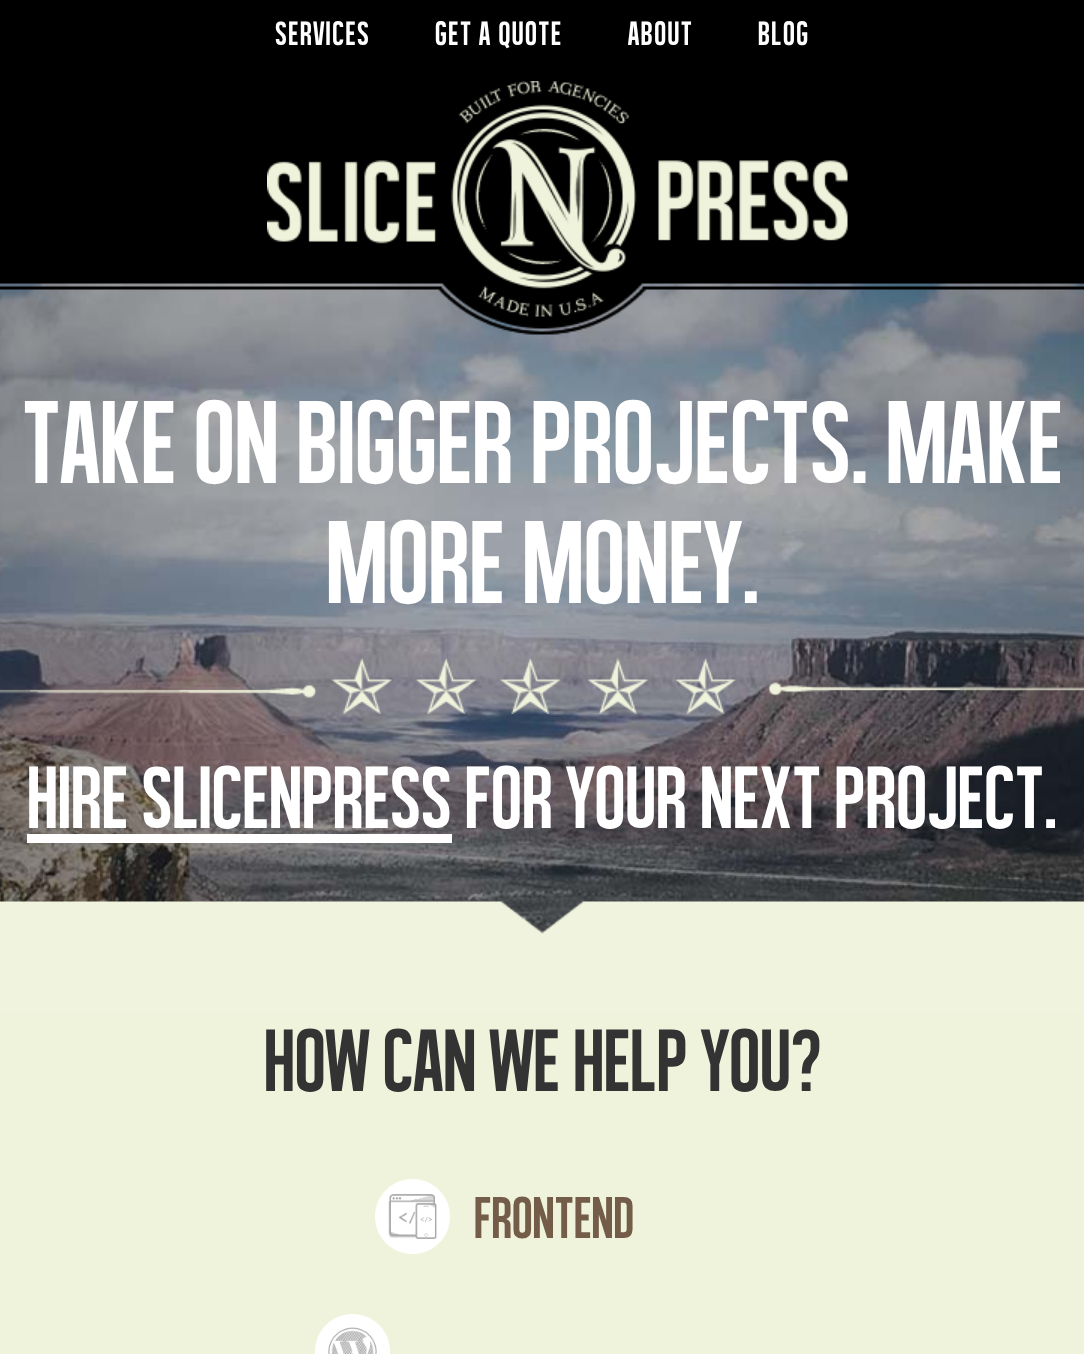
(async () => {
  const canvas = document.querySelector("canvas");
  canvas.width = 1084;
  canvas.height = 1354;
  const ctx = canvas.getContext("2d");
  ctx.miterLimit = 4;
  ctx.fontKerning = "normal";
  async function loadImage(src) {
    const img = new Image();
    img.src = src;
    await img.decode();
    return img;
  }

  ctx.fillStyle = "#f0f3dc";
  ctx.fillRect(0, 0, 1084, 1354);
  ctx.fillStyle = "#000000";
  ctx.fillRect(0, 0, 1084, 260);
  ctx.drawImage(await loadImage("img/3.png"), 0, 283, 1084, 651);
  ctx.drawImage(await loadImage("img/2.png"), 0, 260, 1084, 75);
  ctx.drawImage(await loadImage("img/1.png"), 267, 81, 581, 236);
  ctx.drawImage(await loadImage("img/4.png"), 0, 658, 1084, 56);
  ctx.fillStyle = "#ffffff";
  ctx.fillRect(27, 834, 425, 9);
  ctx.drawImage(await loadImage("img/5.png"), 0, 901, 1084, 113);
  ctx.drawImage(await loadImage("img/6.png"), 375, 1179, 75, 75);
  ctx.drawImage(await loadImage("img/7.png"), 315, 1314, 75, 40);
  ctx.letterSpacing = "1.5px";
  ctx.font = "34.5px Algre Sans";
  for (const [text, x, y] of [
    ["Services", 275, 45],
    ["Get a Quote", 435, 45],
    ["About", 628, 45],
    ["Blog", 758, 45],
  ]) {
    ctx.fillText(text, x, y);
  }
  ctx.letterSpacing = "0px";
  ctx.font = "120px Algre Sans";
  ctx.fillText("Take on bigger projects. Make", 22, 483);
  ctx.fillText("more money.", 326, 603);
  ctx.font = "90.1px Algre Sans";
  ctx.fillText("Hire SlicenPress for your next project.", 27, 828);
  ctx.fillStyle = "#333333";
  ctx.fillText("How can we help you?", 264, 1091);
  ctx.font = "60px Algre Sans";
  ctx.fillStyle = "#735d49";
  ctx.fillText("Frontend", 474, 1238);
})();
